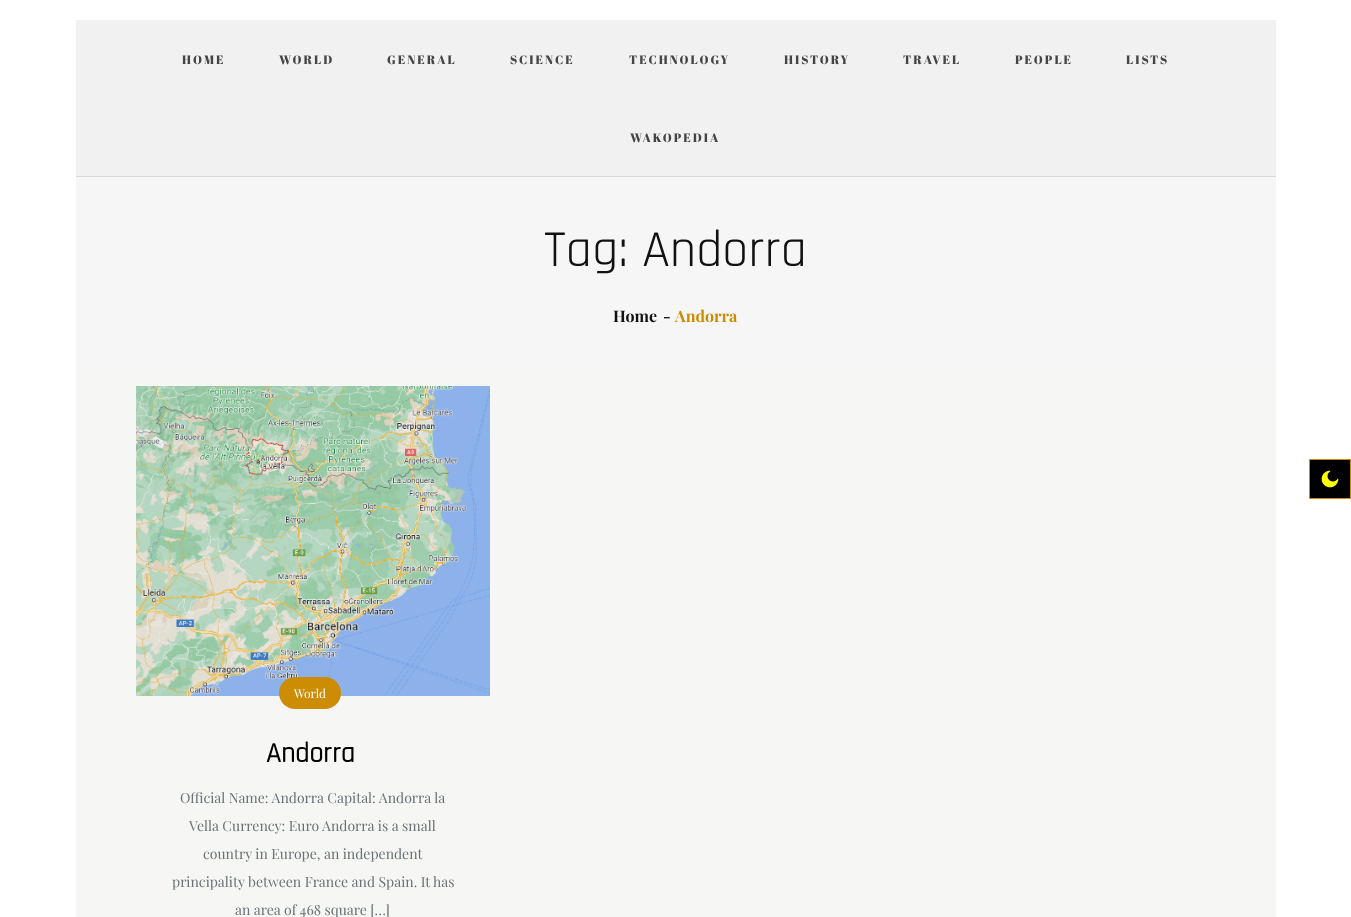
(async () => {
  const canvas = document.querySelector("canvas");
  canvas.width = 1351;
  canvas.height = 917;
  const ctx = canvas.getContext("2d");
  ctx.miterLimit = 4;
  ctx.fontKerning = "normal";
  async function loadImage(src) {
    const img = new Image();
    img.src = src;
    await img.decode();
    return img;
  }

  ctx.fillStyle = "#ffffff";
  ctx.fillRect(0, 0, 1351, 917);
  for (const [x, y, w, h, color] of [
    [76, 366, 1200, 551, "#f6f6f4"],
    [76, 20, 1200, 156, "#f1f1f1"],
    [76, 176, 1200, 1, "#d9d9d9"],
    [76, 177, 1200, 189, "#f6f6f6"],
  ]) {
    ctx.fillStyle = color;
    ctx.fillRect(x, y, w, h);
  }
  ctx.fillStyle = "#000000";
  ctx.beginPath();
  ctx.rect(1309.5, 459.5, 41, 39);
  ctx.fill();
  ctx.strokeStyle = "#cc8c04";
  ctx.stroke();
  ctx.drawImage(await loadImage("img/1.png"), 1321, 470, 18, 18);
  ctx.drawImage(await loadImage("img/2.png"), 136, 386, 354, 310);
  ctx.fillStyle = "#cc8c04";
  ctx.beginPath();
  ctx.roundRect(279, 677, 62, 32, 16);
  ctx.fill();
  ctx.letterSpacing = "2px";
  ctx.font = "12px Abril Fatface";
  ctx.fillStyle = "#444444";
  for (const [text, x, y] of [
    ["HOME", 182, 64],
    ["WORLD", 279, 64],
    ["GENERAL", 387, 64],
    ["SCIENCE", 510, 64],
    ["TECHNOLOGY", 629, 64],
    ["HISTORY", 784, 64],
    ["TRAVEL", 903, 64],
    ["PEOPLE", 1015, 64],
    ["LISTS", 1126, 64],
    ["WAKOPEDIA", 630, 142],
  ]) {
    ctx.fillText(text, x, y);
  }
  ctx.letterSpacing = "0px";
  ctx.font = "52px Rajdhani";
  ctx.fillStyle = "#111111";
  ctx.fillText("Tag: Andorra", 544, 266);
  ctx.font = "bold 16px Playfair Display";
  ctx.fillText("Home", 613, 322);
  ctx.fillText("-", 663, 322);
  ctx.fillStyle = "#cc8c04";
  ctx.fillText("Andorra", 675, 322);
  ctx.font = "12px Playfair Display";
  ctx.fillStyle = "#ffffff";
  ctx.fillText("World", 294, 698);
  ctx.font = "bold 28px Rajdhani";
  ctx.fillStyle = "#000000";
  ctx.fillText("Andorra", 266, 762);
  ctx.font = "14px Playfair Display";
  ctx.fillStyle = "#697275";
  for (const [text, x, y] of [
    ["Official Name: Andorra Capital: Andorra la", 180, 803],
    ["Vella Currency: Euro Andorra is a small", 189, 831],
    ["country in Europe, an independent", 203, 859],
    ["principality between France and Spain. It has", 172, 887],
    ["an area of 468 square […]", 235, 915],
  ]) {
    ctx.fillText(text, x, y);
  }
})();
